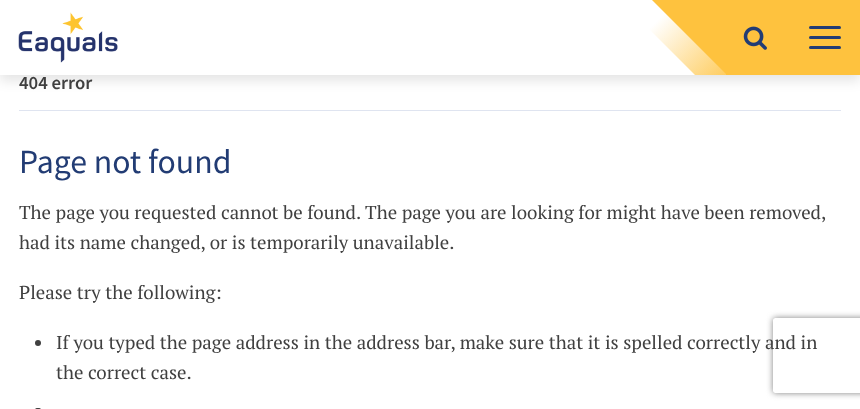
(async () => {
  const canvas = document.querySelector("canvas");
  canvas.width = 860;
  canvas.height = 409;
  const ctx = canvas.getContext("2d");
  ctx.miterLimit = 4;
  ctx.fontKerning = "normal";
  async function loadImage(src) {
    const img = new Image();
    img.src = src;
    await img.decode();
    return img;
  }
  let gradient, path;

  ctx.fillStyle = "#ffffff";
  ctx.fillRect(0, 0, 860, 409);
  ctx.fillStyle = "rgba(0, 0, 0, 0.1)";
  ctx.filter = "blur(6px)";
  ctx.beginPath();
  ctx.rect(0, 6, 860, 75);
  ctx.fill();
  ctx.filter = "none";
  ctx.fillStyle = "#ffffff";
  ctx.fillRect(0, 0, 726, 75);
  ctx.drawImage(await loadImage("img/1.png"), 18, 12, 100, 51);
  ctx.fillStyle = "#fec23e";
  ctx.fillRect(726, 0, 134, 75);
  gradient = ctx.createLinearGradient(678, 0, 753, 75);
  gradient.addColorStop(0, "rgba(254, 194, 62, 0)");
  gradient.addColorStop(1, "#fec23e");
  ctx.fillStyle = gradient;
  path = new Path2D("M620 0H735L810 75H695Z");
  ctx.fill(path);
  ctx.fillStyle = "#fec23e";
  path = new Path2D("M652 0H766L841 75H727Z");
  ctx.fill(path);
  ctx.drawImage(await loadImage("img/2.png"), 743, 26, 24, 24);
  ctx.fillStyle = "#223c74";
  ctx.beginPath();
  ctx.roundRect(809, 26, 32, 3, 1.5);
  ctx.fill();
  ctx.beginPath();
  ctx.roundRect(809, 36, 32, 3, 1.5);
  ctx.fill();
  ctx.beginPath();
  ctx.roundRect(809, 46, 32, 3, 1.5);
  ctx.fill();
  ctx.fillStyle = "#dfe4f0";
  ctx.fillRect(19, 110, 822, 1);
  ctx.fillStyle = "#404040";
  ctx.beginPath();
  ctx.arc(38, 343, 3, 0, Math.PI * 2);
  ctx.fill();
  ctx.beginPath();
  ctx.roundRect(35, 408, 6, 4, 3);
  ctx.fill();
  ctx.save();
  path = new Path2D("M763 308H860V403H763ZM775.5 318H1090.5C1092 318 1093 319 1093 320.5V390.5C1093 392 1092 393 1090.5 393H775.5C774 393 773 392 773 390.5V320.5C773 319 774 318 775.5 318Z");
  ctx.clip(path, "evenodd");
  ctx.fillStyle = "#808080";
  ctx.filter = "blur(3px)";
  ctx.beginPath();
  ctx.roundRect(773, 318, 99, 75, 2.5);
  ctx.fill();
  ctx.filter = "none";
  ctx.restore();
  ctx.font = "600 18.75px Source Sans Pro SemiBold";
  ctx.fillText("404 error", 19, 89);
  ctx.font = "33.75px Source Sans Pro";
  ctx.fillStyle = "#223c74";
  ctx.fillText("Page not found", 19, 173);
  ctx.font = "18.75px PT Serif";
  ctx.fillStyle = "#404040";
  for (const [text, x, y] of [
    ["The page you requested cannot be found. The page you are looking for might have been removed,", 19, 219],
    ["had its name changed, or is temporarily unavailable.", 19, 249],
    ["Please try the following:", 19, 299],
    ["If you typed the page address in the address bar, make sure that it is spelled correctly and in", 56, 349],
    ["the correct case.", 56, 379],
  ]) {
    ctx.fillText(text, x, y);
  }
})();
